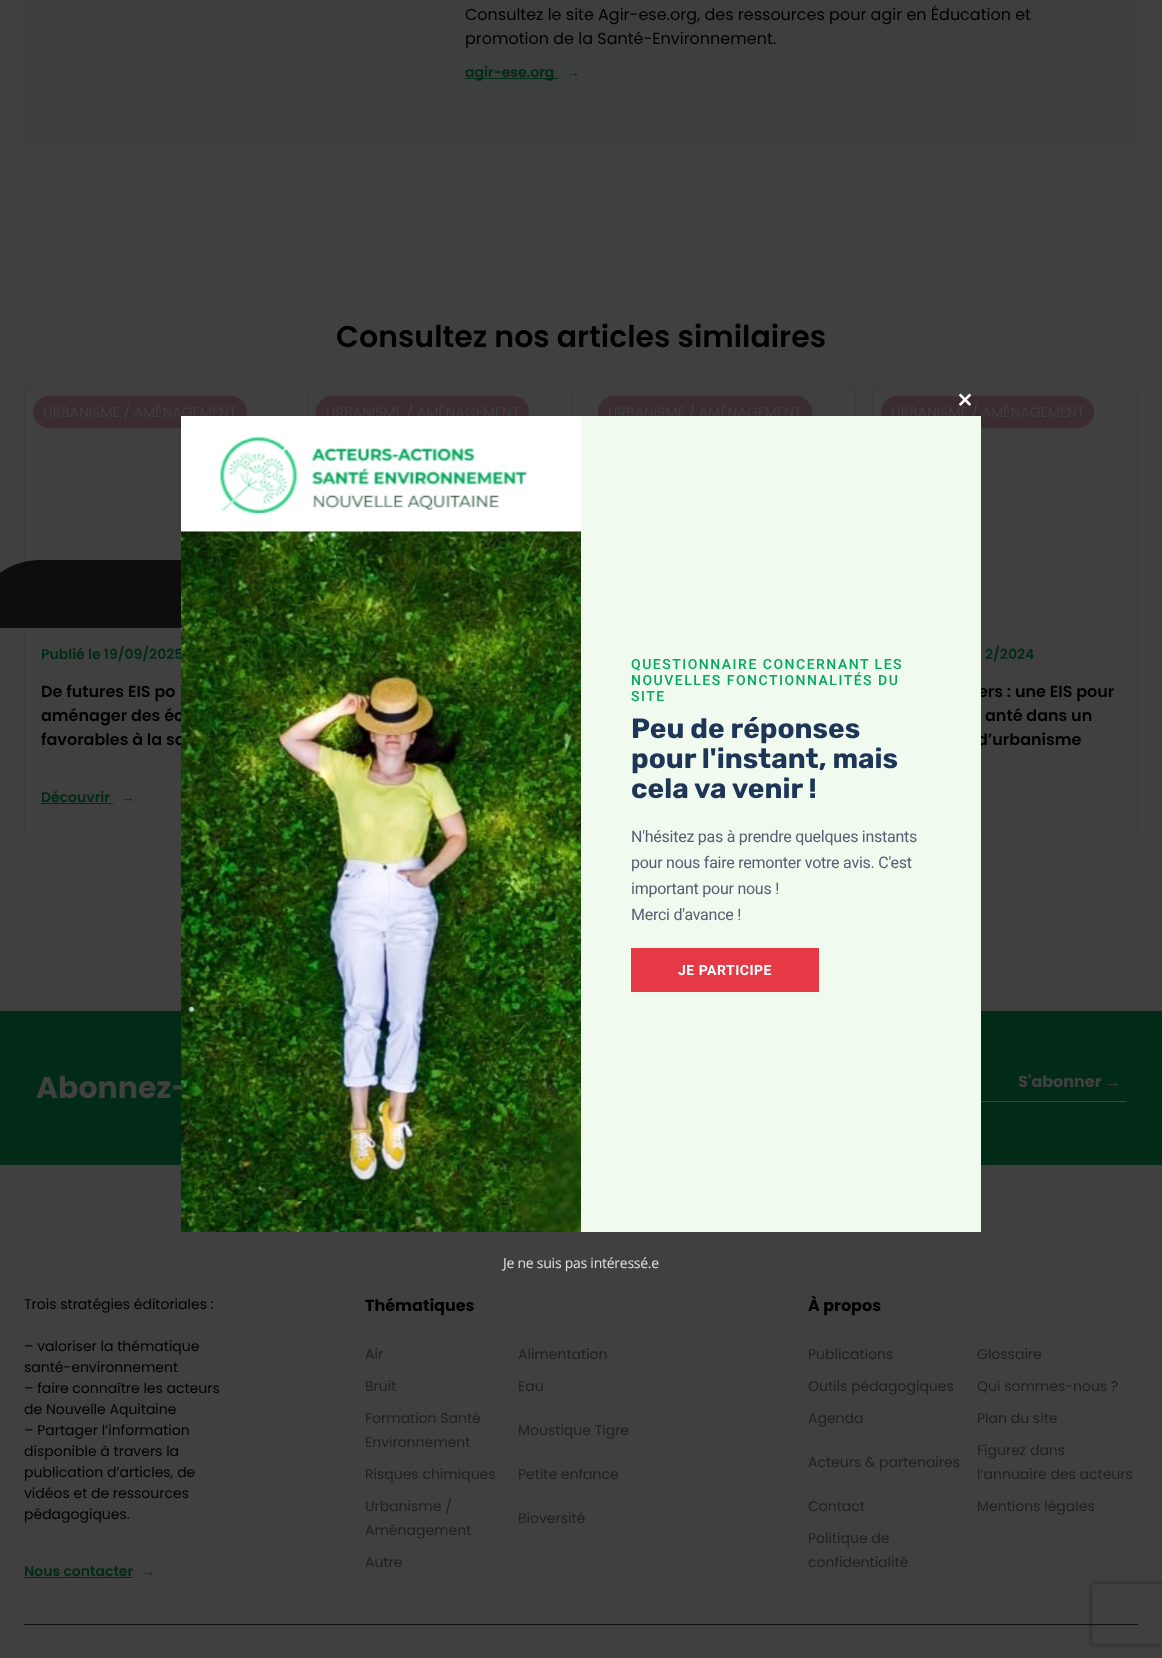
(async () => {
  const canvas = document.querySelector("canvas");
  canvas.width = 1162;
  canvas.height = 1658;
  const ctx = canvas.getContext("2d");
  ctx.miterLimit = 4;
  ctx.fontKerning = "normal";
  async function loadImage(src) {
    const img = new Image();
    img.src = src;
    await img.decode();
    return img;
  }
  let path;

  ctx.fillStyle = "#404040";
  ctx.fillRect(0, 0, 1162, 1658);
  ctx.fillStyle = "#3d3e3e";
  ctx.fillRect(24, 0, 1114, 143);
  ctx.fillStyle = "#012a17";
  ctx.fillRect(465, 78, 93, 1);
  ctx.strokeStyle = "#3a3b3b";
  ctx.strokeRect(24.5, 387.5, 266, 447);
  ctx.fillStyle = "#3a2c31";
  ctx.beginPath();
  ctx.roundRect(33, 396, 214, 32, 16);
  ctx.fill();
  ctx.fillStyle = "rgba(0, 0, 0, 0.8)";
  path = new Path2D("M40 560H290V628H-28C-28 590.5 2.5 560 40 560Z");
  ctx.fill(path);
  ctx.fillStyle = "#012a17";
  ctx.fillRect(41, 803, 72, 1);
  ctx.strokeRect(307.5, 387.5, 265, 447);
  ctx.fillStyle = "#3a2c31";
  ctx.beginPath();
  ctx.roundRect(316, 396, 213, 32, 16);
  ctx.fill();
  ctx.strokeRect(589.5, 387.5, 266, 447);
  ctx.beginPath();
  ctx.roundRect(598, 396, 214, 32, 16);
  ctx.fill();
  ctx.strokeRect(872.5, 387.5, 265, 447);
  ctx.beginPath();
  ctx.roundRect(881, 396, 213, 32, 16);
  ctx.fill();
  for (const [x, y, w, h, color] of [
    [0, 1011, 1162, 154, "#012a17"],
    [981, 1101, 145, 1, "#404040"],
    [24, 1577, 109, 1, "#012a17"],
    [24, 1624, 1114, 1, "#08140d"],
  ]) {
    ctx.fillStyle = color;
    ctx.fillRect(x, y, w, h);
  }
  ctx.save();
  path = new Path2D("M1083 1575H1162V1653H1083ZM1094 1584H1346C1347 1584 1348 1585 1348 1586V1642C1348 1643 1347 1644 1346 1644H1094C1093 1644 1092 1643 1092 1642V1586C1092 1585 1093 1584 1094 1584Z");
  ctx.clip(path, "evenodd");
  ctx.fillStyle = "#202020";
  ctx.filter = "blur(2.5px)";
  ctx.beginPath();
  ctx.roundRect(1092, 1584, 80, 60, 2);
  ctx.fill();
  ctx.filter = "none";
  ctx.restore();
  ctx.font = "16px Poppins";
  ctx.fillStyle = "#000000";
  ctx.fillText("Consultez le site Agir-ese.org, des ressources pour agir en Éducation et", 465, 20);
  ctx.fillText("promotion de la Santé-Environnement.", 465, 44);
  ctx.font = "600 14px Poppins";
  ctx.fillStyle = "#012a17";
  ctx.fillText("agir-ese.org", 465, 77);
  ctx.font = "bold 14px Liberation Sans";
  ctx.fillText("→", 566, 77);
  ctx.font = "600 30px Poppins";
  ctx.fillStyle = "#000000";
  ctx.fillText("Consultez nos articles similaires", 336, 347);
  ctx.font = "14px Poppins";
  ctx.fillStyle = "#404040";
  ctx.fillText("URBANISME / AMÉNAGEMENT", 43, 417);
  ctx.font = "600 14px Poppins";
  ctx.fillStyle = "#012a17";
  ctx.fillText("Publié le 19/09/2025", 41, 659);
  ctx.font = "600 16px Poppins";
  ctx.fillStyle = "#000000";
  for (const [text, x, y] of [
    ["De futures EIS po", 41, 697],
    ["aménager des éc", 41, 721],
    ["favorables à la sa", 41, 745],
  ]) {
    ctx.fillText(text, x, y);
  }
  ctx.font = "600 14px Poppins";
  ctx.fillStyle = "#012a17";
  ctx.fillText("Découvrir", 41, 802);
  ctx.font = "bold 14px Liberation Sans";
  ctx.fillText("→", 121, 802);
  ctx.font = "14px Poppins";
  ctx.fillStyle = "#404040";
  for (const [text, x, y] of [
    ["URBANISME / AMÉNAGEMENT", 326, 417],
    ["URBANISME / AMÉNAGEMENT", 608, 417],
    ["URBANISME / AMÉNAGEMENT", 891, 417],
  ]) {
    ctx.fillText(text, x, y);
  }
  ctx.font = "600 14px Poppins";
  ctx.fillStyle = "#012a17";
  ctx.fillText("2/2024", 985, 659);
  ctx.font = "600 16px Poppins";
  ctx.fillStyle = "#000000";
  for (const [text, x, y] of [
    ["ers : une EIS pour", 978, 697],
    ["anté dans un", 985, 721],
    ["d’urbanisme", 977, 745],
  ]) {
    ctx.fillText(text, x, y);
  }
  ctx.font = "bold 30px Poppins";
  ctx.fillStyle = "#404040";
  ctx.fillText("Abonnez-", 36, 1098);
  ctx.font = "bold 16px Poppins";
  ctx.fillText("S'abonner", 1018, 1087);
  ctx.font = "bold 16px Liberation Sans";
  ctx.fillText("→", 1105, 1087);
  ctx.font = "14px Poppins";
  ctx.fillStyle = "#000000";
  for (const [text, x, y] of [
    ["Trois stratégies éditoriales :", 24, 1309],
    ["– valoriser la thématique", 24, 1351],
    ["santé-environnement", 24, 1372],
    ["– faire connaître les acteurs", 24, 1393],
    ["de Nouvelle Aquitaine", 24, 1414],
    ["– Partager l’information", 24, 1435],
    ["disponible à travers la", 24, 1456],
    ["publication d’articles, de", 24, 1477],
    ["vidéos et de ressources", 24, 1498],
    ["pédagogiques.", 24, 1519],
  ]) {
    ctx.fillText(text, x, y);
  }
  ctx.font = "600 14px Poppins";
  ctx.fillStyle = "#012a17";
  ctx.fillText("Nous contacter", 24, 1576);
  ctx.font = "bold 14px Liberation Sans";
  ctx.fillText("→", 141, 1576);
  ctx.font = "bold 16px Poppins";
  ctx.fillStyle = "#000000";
  ctx.fillText("Thématiques", 365, 1311);
  ctx.font = "14px Poppins";
  ctx.fillStyle = "#202020";
  for (const [text, x, y] of [
    ["Air", 365, 1359],
    ["Alimentation", 518, 1359],
    ["Bruit", 365, 1391],
    ["Eau", 518, 1391],
    ["Formation Santé", 365, 1423],
    ["Environnement", 365, 1447],
    ["Moustique Tigre", 518, 1435],
    ["Risques chimiques", 365, 1479],
    ["Petite enfance", 518, 1479],
    ["Urbanisme /", 365, 1511],
    ["Aménagement", 365, 1535],
    ["Bioversité", 518, 1523],
    ["Autre", 365, 1567],
  ]) {
    ctx.fillText(text, x, y);
  }
  ctx.font = "bold 16px Poppins";
  ctx.fillStyle = "#000000";
  ctx.fillText("À propos", 808, 1311);
  ctx.font = "14px Poppins";
  ctx.fillStyle = "#202020";
  for (const [text, x, y] of [
    ["Publications", 808, 1359],
    ["Glossaire", 977, 1359],
    ["Outils pédagogiques", 808, 1391],
    ["Qui sommes-nous ?", 977, 1391],
    ["Agenda", 808, 1423],
    ["Plan du site", 977, 1423],
    ["Acteurs & partenaires", 808, 1467],
    ["Figurez dans", 977, 1455],
    ["l’annuaire des acteurs", 977, 1479],
    ["Contact", 808, 1511],
    ["Mentions légales", 977, 1511],
    ["Politique de", 808, 1543],
    ["confidentialité", 808, 1567],
  ]) {
    ctx.fillText(text, x, y);
  }
  ctx.fillStyle = "#f1faee";
  ctx.fillRect(581, 416, 400, 816);
  ctx.drawImage(await loadImage("img/1.png"), 959, 393, 12, 13);
  ctx.drawImage(await loadImage("img/2.png"), 181, 416, 400, 816);
  ctx.letterSpacing = "1.5px";
  ctx.font = "500 14px Roboto";
  ctx.fillStyle = "#06a85c";
  for (const [text, x, y] of [
    ["QUESTIONNAIRE CONCERNANT LES", 631, 669],
    ["NOUVELLES FONCTIONNALITÉS DU", 631, 685],
    ["SITE", 631, 701],
  ]) {
    ctx.fillText(text, x, y);
  }
  ctx.letterSpacing = "0px";
  ctx.font = "300 28px Rubik";
  ctx.fillStyle = "#1d3557";
  for (const [text, x, y] of [
    ["Peu de réponses", 631, 738],
    ["pour l'instant, mais", 631, 768],
    ["cela va venir !", 631, 798],
  ]) {
    ctx.fillText(text, x, y);
  }
  ctx.letterSpacing = "-0.25px";
  ctx.font = "16px Roboto";
  ctx.fillStyle = "#546073";
  for (const [text, x, y] of [
    ["N'hésitez pas à prendre quelques instants", 631, 842],
    ["pour nous faire remonter votre avis. C'est", 631, 868],
    ["important pour nous !", 631, 894],
    ["Merci d'avance !", 631, 920],
  ]) {
    ctx.fillText(text, x, y);
  }
  ctx.fillStyle = "#e63946";
  ctx.fillRect(631, 948, 188, 44);
  ctx.letterSpacing = "0.5px";
  ctx.font = "bold 14px Roboto";
  ctx.fillStyle = "#ffffff";
  ctx.fillText("JE PARTICIPE", 678, 975);
  ctx.letterSpacing = "-0.25px";
  ctx.font = "14px Open Sans";
  ctx.fillStyle = "#e1e1e1";
  ctx.fillText("Je ne suis pas intéressé.e", 503, 1268);
})();
